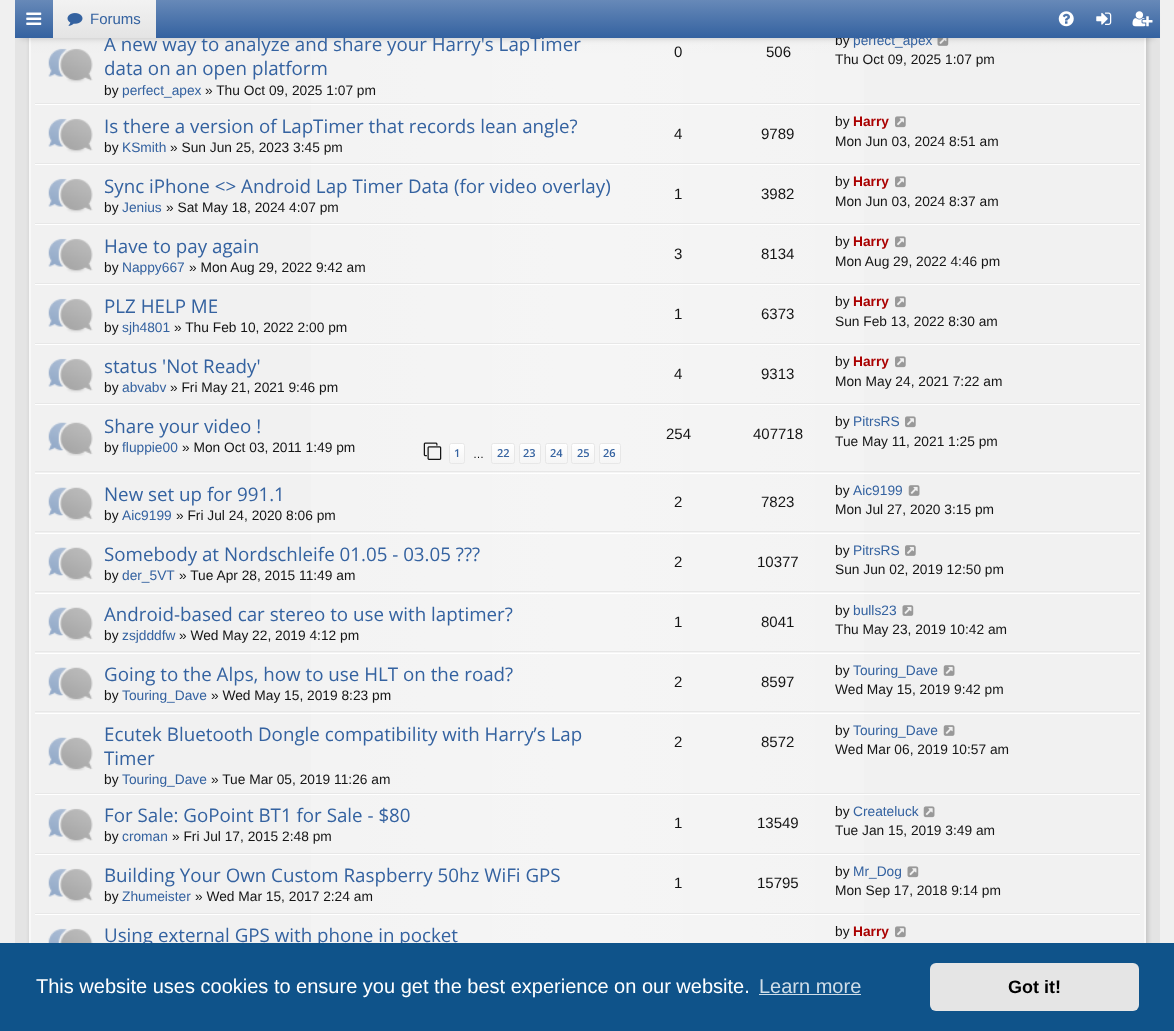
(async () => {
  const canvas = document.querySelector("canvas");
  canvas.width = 1174;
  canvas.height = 1031;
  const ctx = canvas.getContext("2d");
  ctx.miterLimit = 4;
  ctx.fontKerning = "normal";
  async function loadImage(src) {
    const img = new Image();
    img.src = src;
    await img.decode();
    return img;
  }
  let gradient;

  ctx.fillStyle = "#f0f0f0";
  ctx.fillRect(0, 0, 1174, 1031);
  ctx.fillStyle = "#e4e4e4";
  ctx.fillRect(15, 38, 1145, 905);
  ctx.fillStyle = "rgba(0, 0, 0, 0.15)";
  ctx.filter = "blur(2px)";
  ctx.beginPath();
  ctx.roundRect(30, -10, 1118, 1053, 6);
  ctx.fill();
  ctx.filter = "none";
  gradient = ctx.createLinearGradient(587, -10, 588, 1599);
  gradient.addColorStop(0, "#eaeaea");
  gradient.addColorStop(0.01, "#e8e8e8");
  gradient.addColorStop(0.04, "#f1f1f1");
  ctx.fillStyle = gradient;
  ctx.fillRect(30, 38, 1115, 905);
  gradient = ctx.createLinearGradient(30, 794, 1145, 794);
  gradient.addColorStop(0, "rgba(255, 255, 255, 0)");
  gradient.addColorStop(0.5, "rgba(255, 255, 255, 0.3)");
  gradient.addColorStop(1, "rgba(255, 255, 255, 0)");
  ctx.fillStyle = gradient;
  ctx.fillRect(311, 38, 553, 905);
  ctx.strokeStyle = "rgba(255, 255, 255, 0.5)";
  ctx.strokeRect(30.5, -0.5, 1114, 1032);
  ctx.strokeStyle = "#f9f9f9";
  ctx.strokeRect(29.5, -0.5, 1116, 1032);
  ctx.drawImage(await loadImage("img/7.png"), 937, 38, 12, 8);
  ctx.fillStyle = "rgba(0, 0, 0, 0.2)";
  ctx.filter = "blur(3px)";
  ctx.beginPath();
  ctx.rect(21, 13, 1133, 25);
  ctx.fill();
  ctx.filter = "none";
  ctx.fillStyle = "#e7e7e7";
  ctx.fillRect(35, 103, 1105, 1);
  ctx.drawImage(await loadImage("img/6.png"), 48, 48, 45, 35);
  ctx.fillStyle = "#ffffff";
  ctx.fillRect(35, 104, 1105, 1);
  ctx.fillStyle = "#e7e7e7";
  ctx.fillRect(35, 163, 1105, 1);
  ctx.drawImage(await loadImage("img/8.png"), 48, 118, 45, 35);
  ctx.drawImage(await loadImage("img/9.png"), 895, 116, 11, 12);
  ctx.fillStyle = "#ffffff";
  ctx.fillRect(35, 164, 1105, 1);
  ctx.fillStyle = "#e7e7e7";
  ctx.fillRect(35, 223, 1105, 1);
  ctx.drawImage(await loadImage("img/8.png"), 48, 178, 45, 35);
  ctx.drawImage(await loadImage("img/9.png"), 895, 176, 11, 12);
  ctx.fillStyle = "#ffffff";
  ctx.fillRect(35, 224, 1105, 1);
  ctx.fillStyle = "#e7e7e7";
  ctx.fillRect(35, 283, 1105, 1);
  ctx.drawImage(await loadImage("img/8.png"), 48, 238, 45, 35);
  ctx.drawImage(await loadImage("img/9.png"), 895, 236, 11, 12);
  ctx.fillStyle = "#ffffff";
  ctx.fillRect(35, 284, 1105, 1);
  ctx.fillStyle = "#e7e7e7";
  ctx.fillRect(35, 343, 1105, 1);
  ctx.drawImage(await loadImage("img/8.png"), 48, 298, 45, 35);
  ctx.drawImage(await loadImage("img/9.png"), 895, 296, 11, 12);
  ctx.fillStyle = "#ffffff";
  ctx.fillRect(35, 344, 1105, 1);
  ctx.fillStyle = "#e7e7e7";
  ctx.fillRect(35, 403, 1105, 1);
  ctx.drawImage(await loadImage("img/8.png"), 48, 358, 45, 35);
  ctx.drawImage(await loadImage("img/9.png"), 895, 356, 11, 12);
  ctx.fillStyle = "#ffffff";
  ctx.fillRect(35, 404, 1105, 1);
  ctx.fillStyle = "#e7e7e7";
  ctx.fillRect(35, 471, 1105, 1);
  ctx.drawImage(await loadImage("img/10.png"), 48, 422, 45, 34);
  ctx.drawImage(await loadImage("img/11.png"), 423, 442, 19, 18);
  ctx.save();
  ctx.beginPath();
  ctx.roundRect(449, 443, 16, 21, 2.5);
  ctx.clip();
  gradient = ctx.createLinearGradient(457, 444, 457, 463);
  gradient.addColorStop(0, "#ffffff");
  gradient.addColorStop(1, "#f4f4f4");
  ctx.fillStyle = gradient;
  ctx.fillRect(449, 444, 16, 19);
  ctx.restore();
  ctx.beginPath();
  ctx.roundRect(449.5, 443.5, 15, 20, 2);
  ctx.strokeStyle = "#e7e7e7";
  ctx.stroke();
  ctx.save();
  ctx.beginPath();
  ctx.roundRect(491, 443, 24, 21, 2.5);
  ctx.clip();
  gradient = ctx.createLinearGradient(503, 444, 503, 463);
  gradient.addColorStop(0, "#ffffff");
  gradient.addColorStop(1, "#f5f5f5");
  ctx.fillStyle = gradient;
  ctx.fillRect(491, 444, 24, 19);
  ctx.restore();
  ctx.beginPath();
  ctx.roundRect(491.5, 443.5, 23, 20, 2);
  ctx.stroke();
  ctx.save();
  ctx.beginPath();
  ctx.roundRect(519, 443, 22, 21, 2.5);
  ctx.clip();
  gradient = ctx.createLinearGradient(530, 444, 530, 463);
  gradient.addColorStop(0, "#ffffff");
  gradient.addColorStop(1, "#f5f5f5");
  ctx.fillStyle = gradient;
  ctx.fillRect(519, 444, 22, 19);
  ctx.restore();
  ctx.beginPath();
  ctx.roundRect(519.5, 443.5, 21, 20, 2);
  ctx.stroke();
  ctx.save();
  ctx.beginPath();
  ctx.roundRect(545, 443, 23, 21, 2.5);
  ctx.clip();
  gradient = ctx.createLinearGradient(556, 444, 556, 463);
  gradient.addColorStop(0, "#ffffff");
  gradient.addColorStop(1, "#f5f5f5");
  ctx.fillStyle = gradient;
  ctx.fillRect(545, 444, 23, 19);
  ctx.restore();
  ctx.beginPath();
  ctx.roundRect(545.5, 443.5, 22, 20, 2);
  ctx.stroke();
  ctx.save();
  ctx.beginPath();
  ctx.roundRect(571, 443, 24, 21, 2.5);
  ctx.clip();
  gradient = ctx.createLinearGradient(583, 444, 583, 463);
  gradient.addColorStop(0, "#ffffff");
  gradient.addColorStop(1, "#f5f5f5");
  ctx.fillStyle = gradient;
  ctx.fillRect(571, 444, 24, 19);
  ctx.restore();
  ctx.beginPath();
  ctx.roundRect(571.5, 443.5, 23, 20, 2);
  ctx.stroke();
  ctx.save();
  ctx.beginPath();
  ctx.roundRect(599, 443, 22, 21, 2.5);
  ctx.clip();
  gradient = ctx.createLinearGradient(610, 444, 610, 463);
  gradient.addColorStop(0, "#ffffff");
  gradient.addColorStop(1, "#f5f5f5");
  ctx.fillStyle = gradient;
  ctx.fillRect(599, 444, 22, 19);
  ctx.restore();
  ctx.beginPath();
  ctx.roundRect(599.5, 443.5, 21, 20, 2);
  ctx.stroke();
  ctx.drawImage(await loadImage("img/12.png"), 905, 416, 11, 12);
  ctx.fillStyle = "#ffffff";
  ctx.fillRect(35, 473, 1105, 1);
  ctx.fillStyle = "#e7e7e7";
  ctx.fillRect(35, 531, 1105, 1);
  ctx.drawImage(await loadImage("img/13.png"), 48, 487, 45, 34);
  ctx.drawImage(await loadImage("img/14.png"), 908, 485, 12, 11);
  ctx.fillStyle = "#ffffff";
  ctx.fillRect(35, 533, 1105, 1);
  ctx.fillStyle = "#e7e7e7";
  ctx.fillRect(35, 591, 1105, 1);
  ctx.drawImage(await loadImage("img/13.png"), 48, 547, 45, 34);
  ctx.drawImage(await loadImage("img/15.png"), 905, 545, 11, 11);
  ctx.fillStyle = "#ffffff";
  ctx.fillRect(35, 593, 1105, 1);
  ctx.fillStyle = "#e7e7e7";
  ctx.fillRect(35, 651, 1105, 1);
  ctx.drawImage(await loadImage("img/13.png"), 48, 607, 45, 34);
  ctx.drawImage(await loadImage("img/16.png"), 902, 605, 12, 11);
  ctx.fillStyle = "#ffffff";
  ctx.fillRect(35, 653, 1105, 1);
  ctx.fillStyle = "#e7e7e7";
  ctx.fillRect(35, 711, 1105, 1);
  ctx.drawImage(await loadImage("img/13.png"), 48, 667, 45, 34);
  ctx.drawImage(await loadImage("img/17.png"), 943, 665, 12, 11);
  ctx.fillStyle = "#ffffff";
  ctx.fillRect(35, 713, 1105, 1);
  ctx.fillStyle = "#e7e7e7";
  ctx.fillRect(35, 793, 1105, 1);
  ctx.drawImage(await loadImage("img/13.png"), 48, 737, 45, 34);
  ctx.drawImage(await loadImage("img/17.png"), 943, 725, 12, 11);
  ctx.fillStyle = "#ffffff";
  ctx.fillRect(35, 794, 1105, 1);
  ctx.fillStyle = "#e7e7e7";
  ctx.fillRect(35, 853, 1105, 1);
  ctx.drawImage(await loadImage("img/18.png"), 48, 808, 45, 35);
  ctx.drawImage(await loadImage("img/19.png"), 923, 806, 12, 12);
  ctx.fillStyle = "#ffffff";
  ctx.fillRect(35, 854, 1105, 1);
  ctx.fillStyle = "#e7e7e7";
  ctx.fillRect(35, 913, 1105, 1);
  ctx.drawImage(await loadImage("img/8.png"), 48, 868, 45, 35);
  ctx.drawImage(await loadImage("img/20.png"), 907, 866, 12, 12);
  ctx.fillStyle = "#ffffff";
  ctx.fillRect(35, 914, 1105, 1);
  ctx.drawImage(await loadImage("img/21.png"), 48, 928, 45, 15);
  ctx.drawImage(await loadImage("img/9.png"), 895, 926, 11, 12);
  ctx.font = "18.75px Open Sans";
  ctx.fillStyle = "#3462a0";
  ctx.fillText("A new way to analyze and share your Harry's LapTimer", 104, 51);
  ctx.fillText("data on an open platform", 104, 75);
  ctx.font = "13.75px Liberation Sans";
  ctx.fillStyle = "#141414";
  ctx.fillText("by", 104, 95);
  ctx.fillStyle = "#3462a0";
  ctx.fillText("perfect_apex", 122, 95);
  ctx.fillStyle = "#141414";
  ctx.fillText("» Thu Oct 09, 2025 1:07 pm", 205, 95);
  ctx.font = "15px Liberation Sans";
  ctx.fillText("0", 674, 57);
  ctx.fillText("506", 766, 57);
  ctx.font = "13.75px Liberation Sans";
  ctx.fillText("by", 835, 45);
  ctx.fillStyle = "#3462a0";
  ctx.fillText("perfect_apex", 853, 45);
  gradient = ctx.createLinearGradient(588, 0, 588, 38);
  gradient.addColorStop(0, "#6789b8");
  gradient.addColorStop(1, "#3462a0");
  ctx.fillStyle = gradient;
  ctx.fillRect(15, 0, 1145, 38);
  ctx.drawImage(await loadImage("img/5.png"), 1132, 11, 21, 16);
  ctx.drawImage(await loadImage("img/4.png"), 1096, 12, 16, 13);
  ctx.drawImage(await loadImage("img/3.png"), 1058, 11, 16, 16);
  gradient = ctx.createLinearGradient(104, 0, 104, 38);
  gradient.addColorStop(0, "#f2f2f2");
  gradient.addColorStop(1, "#e4e4e4");
  ctx.fillStyle = gradient;
  ctx.fillRect(53, 0, 103, 38);
  ctx.drawImage(await loadImage("img/2.png"), 67, 13, 16, 13);
  ctx.font = "15px Liberation Sans";
  ctx.fillStyle = "#3462a0";
  ctx.fillText("Forums", 90, 24);
  ctx.drawImage(await loadImage("img/1.png"), 26, 12, 16, 13);
  ctx.font = "13.75px Liberation Sans";
  ctx.fillStyle = "#141414";
  ctx.fillText("Thu Oct 09, 2025 1:07 pm", 835, 64);
  ctx.font = "18.75px Open Sans";
  ctx.fillStyle = "#3462a0";
  ctx.fillText("Is there a version of LapTimer that records lean angle?", 104, 133);
  ctx.font = "13.75px Liberation Sans";
  ctx.fillStyle = "#141414";
  ctx.fillText("by", 104, 152);
  ctx.fillStyle = "#3462a0";
  ctx.fillText("KSmith", 122, 152);
  ctx.fillStyle = "#141414";
  ctx.fillText("» Sun Jun 25, 2023 3:45 pm", 170, 152);
  ctx.font = "15px Liberation Sans";
  ctx.fillText("4", 674, 139);
  ctx.fillText("9789", 761, 139);
  ctx.font = "13.75px Liberation Sans";
  ctx.fillText("by", 835, 126);
  ctx.font = "bold 13.75px Liberation Sans";
  ctx.fillStyle = "#aa0000";
  ctx.fillText("Harry", 853, 126);
  ctx.font = "13.75px Liberation Sans";
  ctx.fillStyle = "#141414";
  ctx.fillText("Mon Jun 03, 2024 8:51 am", 835, 146);
  ctx.font = "18.75px Open Sans";
  ctx.fillStyle = "#3462a0";
  ctx.fillText("Sync iPhone <> Android Lap Timer Data (for video overlay)", 104, 193);
  ctx.font = "13.75px Liberation Sans";
  ctx.fillStyle = "#141414";
  ctx.fillText("by", 104, 212);
  ctx.fillStyle = "#3462a0";
  ctx.fillText("Jenius", 122, 212);
  ctx.fillStyle = "#141414";
  ctx.fillText("» Sat May 18, 2024 4:07 pm", 166, 212);
  ctx.font = "15px Liberation Sans";
  ctx.fillText("1", 674, 199);
  ctx.fillText("3982", 761, 199);
  ctx.font = "13.75px Liberation Sans";
  ctx.fillText("by", 835, 186);
  ctx.font = "bold 13.75px Liberation Sans";
  ctx.fillStyle = "#aa0000";
  ctx.fillText("Harry", 853, 186);
  ctx.font = "13.75px Liberation Sans";
  ctx.fillStyle = "#141414";
  ctx.fillText("Mon Jun 03, 2024 8:37 am", 835, 206);
  ctx.font = "18.75px Open Sans";
  ctx.fillStyle = "#3462a0";
  ctx.fillText("Have to pay again", 104, 253);
  ctx.font = "13.75px Liberation Sans";
  ctx.fillStyle = "#141414";
  ctx.fillText("by", 104, 272);
  ctx.fillStyle = "#3462a0";
  ctx.fillText("Nappy667", 122, 272);
  ctx.fillStyle = "#141414";
  ctx.fillText("» Mon Aug 29, 2022 9:42 am", 189, 272);
  ctx.font = "15px Liberation Sans";
  ctx.fillText("3", 674, 259);
  ctx.fillText("8134", 761, 259);
  ctx.font = "13.75px Liberation Sans";
  ctx.fillText("by", 835, 246);
  ctx.font = "bold 13.75px Liberation Sans";
  ctx.fillStyle = "#aa0000";
  ctx.fillText("Harry", 853, 246);
  ctx.font = "13.75px Liberation Sans";
  ctx.fillStyle = "#141414";
  ctx.fillText("Mon Aug 29, 2022 4:46 pm", 835, 266);
  ctx.font = "18.75px Open Sans";
  ctx.fillStyle = "#3462a0";
  ctx.fillText("PLZ HELP ME", 104, 313);
  ctx.font = "13.75px Liberation Sans";
  ctx.fillStyle = "#141414";
  ctx.fillText("by", 104, 332);
  ctx.fillStyle = "#3462a0";
  ctx.fillText("sjh4801", 122, 332);
  ctx.fillStyle = "#141414";
  ctx.fillText("» Thu Feb 10, 2022 2:00 pm", 174, 332);
  ctx.font = "15px Liberation Sans";
  ctx.fillText("1", 674, 319);
  ctx.fillText("6373", 761, 319);
  ctx.font = "13.75px Liberation Sans";
  ctx.fillText("by", 835, 306);
  ctx.font = "bold 13.75px Liberation Sans";
  ctx.fillStyle = "#aa0000";
  ctx.fillText("Harry", 853, 306);
  ctx.font = "13.75px Liberation Sans";
  ctx.fillStyle = "#141414";
  ctx.fillText("Sun Feb 13, 2022 8:30 am", 835, 326);
  ctx.font = "18.75px Open Sans";
  ctx.fillStyle = "#3462a0";
  ctx.fillText("status 'Not Ready'", 104, 373);
  ctx.font = "13.75px Liberation Sans";
  ctx.fillStyle = "#141414";
  ctx.fillText("by", 104, 392);
  ctx.fillStyle = "#3462a0";
  ctx.fillText("abvabv", 122, 392);
  ctx.fillStyle = "#141414";
  ctx.fillText("» Fri May 21, 2021 9:46 pm", 170, 392);
  ctx.font = "15px Liberation Sans";
  ctx.fillText("4", 674, 379);
  ctx.fillText("9313", 761, 379);
  ctx.font = "13.75px Liberation Sans";
  ctx.fillText("by", 835, 366);
  ctx.font = "bold 13.75px Liberation Sans";
  ctx.fillStyle = "#aa0000";
  ctx.fillText("Harry", 853, 366);
  ctx.font = "13.75px Liberation Sans";
  ctx.fillStyle = "#141414";
  ctx.fillText("Mon May 24, 2021 7:22 am", 835, 386);
  ctx.font = "18.75px Open Sans";
  ctx.fillStyle = "#3462a0";
  ctx.fillText("Share your video !", 104, 433);
  ctx.font = "13.75px Liberation Sans";
  ctx.fillStyle = "#141414";
  ctx.fillText("by", 104, 452);
  ctx.fillStyle = "#3462a0";
  ctx.fillText("fluppie00", 122, 452);
  ctx.fillStyle = "#141414";
  ctx.fillText("» Mon Oct 03, 2011 1:49 pm", 182, 452);
  ctx.font = "600 11px Open Sans";
  ctx.fillStyle = "#3462a0";
  ctx.fillText("1", 454, 457);
  ctx.font = "11px Liberation Sans";
  ctx.fillStyle = "#000000";
  ctx.fillText("…", 473, 458);
  ctx.font = "600 11px Open Sans";
  ctx.fillStyle = "#3462a0";
  for (const [text, x, y] of [
    ["22", 497, 457],
    ["23", 523, 457],
    ["24", 550, 457],
    ["25", 577, 457],
    ["26", 603, 457],
  ]) {
    ctx.fillText(text, x, y);
  }
  ctx.font = "15px Liberation Sans";
  ctx.fillStyle = "#141414";
  ctx.fillText("254", 666, 439);
  ctx.fillText("407718", 753, 439);
  ctx.font = "13.75px Liberation Sans";
  ctx.fillText("by", 835, 426);
  ctx.fillStyle = "#3462a0";
  ctx.fillText("PitrsRS", 853, 426);
  ctx.fillStyle = "#141414";
  ctx.fillText("Tue May 11, 2021 1:25 pm", 835, 446);
  ctx.font = "18.75px Open Sans";
  ctx.fillStyle = "#3462a0";
  ctx.fillText("New set up for 991.1", 104, 501);
  ctx.font = "13.75px Liberation Sans";
  ctx.fillStyle = "#141414";
  ctx.fillText("by", 104, 520);
  ctx.fillStyle = "#3462a0";
  ctx.fillText("Aic9199", 122, 520);
  ctx.fillStyle = "#141414";
  ctx.fillText("» Fri Jul 24, 2020 8:06 pm", 176, 520);
  ctx.font = "15px Liberation Sans";
  ctx.fillText("2", 674, 507);
  ctx.fillText("7823", 761, 507);
  ctx.font = "13.75px Liberation Sans";
  ctx.fillText("by", 835, 495);
  ctx.fillStyle = "#3462a0";
  ctx.fillText("Aic9199", 853, 495);
  ctx.fillStyle = "#141414";
  ctx.fillText("Mon Jul 27, 2020 3:15 pm", 835, 514);
  ctx.font = "18.75px Open Sans";
  ctx.fillStyle = "#3462a0";
  ctx.fillText("Somebody at Nordschleife 01.05 - 03.05 ???", 104, 561);
  ctx.font = "13.75px Liberation Sans";
  ctx.fillStyle = "#141414";
  ctx.fillText("by", 104, 580);
  ctx.fillStyle = "#3462a0";
  ctx.fillText("der_5VT", 122, 580);
  ctx.fillStyle = "#141414";
  ctx.fillText("» Tue Apr 28, 2015 11:49 am", 179, 580);
  ctx.font = "15px Liberation Sans";
  ctx.fillText("2", 674, 567);
  ctx.fillText("10377", 757, 567);
  ctx.font = "13.75px Liberation Sans";
  ctx.fillText("by", 835, 555);
  ctx.fillStyle = "#3462a0";
  ctx.fillText("PitrsRS", 853, 555);
  ctx.fillStyle = "#141414";
  ctx.fillText("Sun Jun 02, 2019 12:50 pm", 835, 574);
  ctx.font = "18.75px Open Sans";
  ctx.fillStyle = "#3462a0";
  ctx.fillText("Android-based car stereo to use with laptimer?", 104, 621);
  ctx.font = "13.75px Liberation Sans";
  ctx.fillStyle = "#141414";
  ctx.fillText("by", 104, 640);
  ctx.fillStyle = "#3462a0";
  ctx.fillText("zsjdddfw", 122, 640);
  ctx.fillStyle = "#141414";
  ctx.fillText("» Wed May 22, 2019 4:12 pm", 179, 640);
  ctx.font = "15px Liberation Sans";
  ctx.fillText("1", 674, 627);
  ctx.fillText("8041", 761, 627);
  ctx.font = "13.75px Liberation Sans";
  ctx.fillText("by", 835, 615);
  ctx.fillStyle = "#3462a0";
  ctx.fillText("bulls23", 853, 615);
  ctx.fillStyle = "#141414";
  ctx.fillText("Thu May 23, 2019 10:42 am", 835, 634);
  ctx.font = "18.75px Open Sans";
  ctx.fillStyle = "#3462a0";
  ctx.fillText("Going to the Alps, how to use HLT on the road?", 104, 681);
  ctx.font = "13.75px Liberation Sans";
  ctx.fillStyle = "#141414";
  ctx.fillText("by", 104, 700);
  ctx.fillStyle = "#3462a0";
  ctx.fillText("Touring_Dave", 122, 700);
  ctx.fillStyle = "#141414";
  ctx.fillText("» Wed May 15, 2019 8:23 pm", 211, 700);
  ctx.font = "15px Liberation Sans";
  ctx.fillText("2", 674, 687);
  ctx.fillText("8597", 761, 687);
  ctx.font = "13.75px Liberation Sans";
  ctx.fillText("by", 835, 675);
  ctx.fillStyle = "#3462a0";
  ctx.fillText("Touring_Dave", 853, 675);
  ctx.fillStyle = "#141414";
  ctx.fillText("Wed May 15, 2019 9:42 pm", 835, 694);
  ctx.font = "18.75px Open Sans";
  ctx.fillStyle = "#3462a0";
  ctx.fillText("Ecutek Bluetooth Dongle compatibility with Harry’s Lap", 104, 741);
  ctx.fillText("Timer", 104, 765);
  ctx.font = "13.75px Liberation Sans";
  ctx.fillStyle = "#141414";
  ctx.fillText("by", 104, 784);
  ctx.fillStyle = "#3462a0";
  ctx.fillText("Touring_Dave", 122, 784);
  ctx.fillStyle = "#141414";
  ctx.fillText("» Tue Mar 05, 2019 11:26 am", 211, 784);
  ctx.font = "15px Liberation Sans";
  ctx.fillText("2", 674, 747);
  ctx.fillText("8572", 761, 747);
  ctx.font = "13.75px Liberation Sans";
  ctx.fillText("by", 835, 735);
  ctx.fillStyle = "#3462a0";
  ctx.fillText("Touring_Dave", 853, 735);
  ctx.fillStyle = "#141414";
  ctx.fillText("Wed Mar 06, 2019 10:57 am", 835, 754);
  ctx.font = "18.75px Open Sans";
  ctx.fillStyle = "#3462a0";
  ctx.fillText("For Sale: GoPoint BT1 for Sale - $80", 104, 822);
  ctx.font = "13.75px Liberation Sans";
  ctx.fillStyle = "#141414";
  ctx.fillText("by", 104, 841);
  ctx.fillStyle = "#3462a0";
  ctx.fillText("croman", 122, 841);
  ctx.fillStyle = "#141414";
  ctx.fillText("» Fri Jul 17, 2015 2:48 pm", 172, 841);
  ctx.font = "15px Liberation Sans";
  ctx.fillText("1", 674, 828);
  ctx.fillText("13549", 757, 828);
  ctx.font = "13.75px Liberation Sans";
  ctx.fillText("by", 835, 816);
  ctx.fillStyle = "#3462a0";
  ctx.fillText("Createluck", 853, 816);
  ctx.fillStyle = "#141414";
  ctx.fillText("Tue Jan 15, 2019 3:49 am", 835, 835);
  ctx.font = "18.75px Open Sans";
  ctx.fillStyle = "#3462a0";
  ctx.fillText("Building Your Own Custom Raspberry 50hz WiFi GPS", 104, 882);
  ctx.font = "13.75px Liberation Sans";
  ctx.fillStyle = "#141414";
  ctx.fillText("by", 104, 901);
  ctx.fillStyle = "#3462a0";
  ctx.fillText("Zhumeister", 122, 901);
  ctx.fillStyle = "#141414";
  ctx.fillText("» Wed Mar 15, 2017 2:24 am", 195, 901);
  ctx.font = "15px Liberation Sans";
  ctx.fillText("1", 674, 888);
  ctx.fillText("15795", 757, 888);
  ctx.font = "13.75px Liberation Sans";
  ctx.fillText("by", 835, 876);
  ctx.fillStyle = "#3462a0";
  ctx.fillText("Mr_Dog", 853, 876);
  ctx.fillStyle = "#141414";
  ctx.fillText("Mon Sep 17, 2018 9:14 pm", 835, 895);
  ctx.font = "18.75px Open Sans";
  ctx.fillStyle = "#3462a0";
  ctx.fillText("Using external GPS with phone in pocket", 104, 942);
  ctx.font = "13.75px Liberation Sans";
  ctx.fillStyle = "#141414";
  ctx.fillText("by", 835, 936);
  ctx.font = "bold 13.75px Liberation Sans";
  ctx.fillStyle = "#aa0000";
  ctx.fillText("Harry", 853, 936);
  ctx.fillStyle = "#0f538a";
  ctx.fillRect(0, 943, 1174, 88);
  ctx.font = "20px Liberation Sans";
  ctx.fillStyle = "#ffffff";
  ctx.fillText("This website uses cookies to ensure you get the best experience on our website.", 36, 993);
  ctx.fillStyle = "#cfdde8";
  ctx.fillText("Learn more", 759, 993);
  ctx.fillRect(759, 994, 102, 1);
  ctx.fillStyle = "#e5e5e5";
  ctx.beginPath();
  ctx.roundRect(930, 963, 209, 48, 6);
  ctx.fill();
  ctx.font = "bold 18px Liberation Sans";
  ctx.fillStyle = "#000000";
  ctx.fillText("Got it!", 1008, 993);
})();
